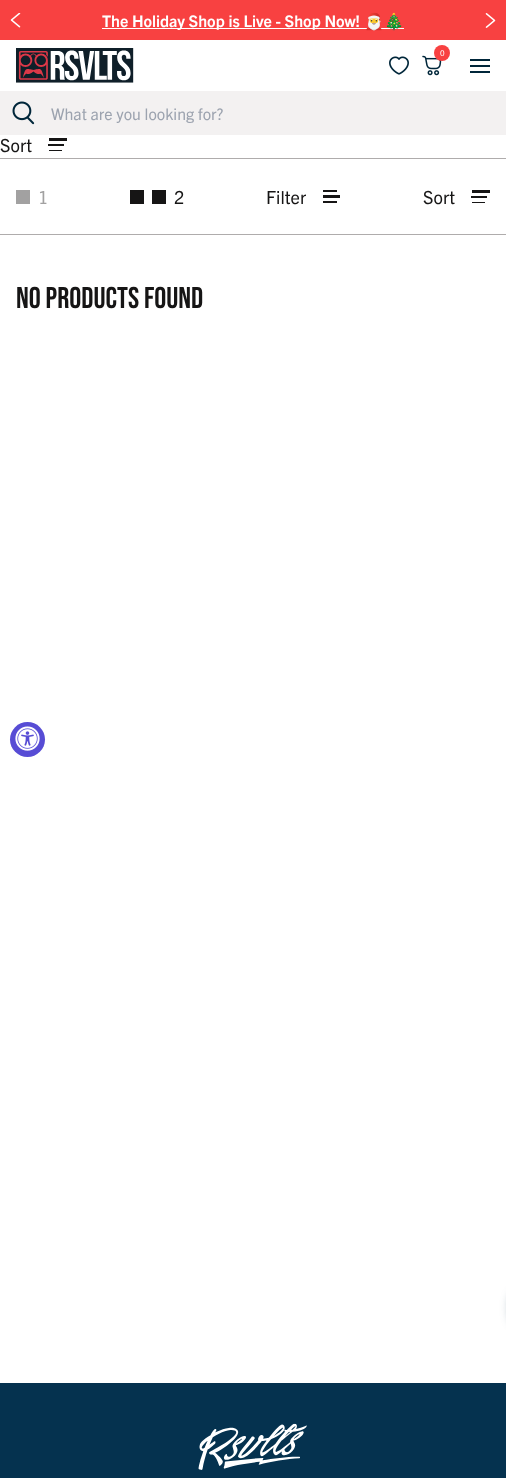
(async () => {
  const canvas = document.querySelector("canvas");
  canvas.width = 506;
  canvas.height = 1478;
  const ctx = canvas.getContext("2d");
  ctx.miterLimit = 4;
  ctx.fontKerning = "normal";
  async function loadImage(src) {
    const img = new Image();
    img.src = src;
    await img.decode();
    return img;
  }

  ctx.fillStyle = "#ffffff";
  ctx.fillRect(0, 0, 506, 1478);
  ctx.fillStyle = "#f84141";
  ctx.fillRect(0, 0, 506, 40);
  ctx.drawImage(await loadImage("img/1.png"), 10, 13, 11, 15);
  ctx.fillStyle = "#ffffff";
  ctx.fillRect(102, 28, 302, 1);
  ctx.drawImage(await loadImage("img/2.png"), 485, 13, 11, 15);
  ctx.drawImage(await loadImage("img/3.png"), 16, 48, 118, 35);
  ctx.drawImage(await loadImage("img/4.png"), 422, 55, 20, 21);
  ctx.fillStyle = "#f84141";
  ctx.beginPath();
  ctx.arc(442, 53, 8, 0, Math.PI * 2);
  ctx.fill();
  ctx.drawImage(await loadImage("img/5.png"), 389, 56, 20, 19);
  for (const [x, y, w, h, color] of [
    [470, 71, 20, 2, "#00263a"],
    [470, 65, 20, 2, "#00263a"],
    [470, 59, 20, 2, "#00263a"],
    [0, 91, 506, 44, "#f3f1f1"],
  ]) {
    ctx.fillStyle = color;
    ctx.fillRect(x, y, w, h);
  }
  ctx.drawImage(await loadImage("img/6.png"), 12, 101, 23, 24);
  for (const [x, y, w, h, color] of [
    [49, 138, 18, 3, "#161515"],
    [48, 144, 16, 2, "#161515"],
    [49, 150, 13, 1, "#161515"],
    [0, 158, 506, 1, "#afacac"],
    [0, 234, 506, 1, "#afacac"],
    [16, 190, 14, 14, "#a2a1a1"],
    [130, 190, 14, 14, "#161515"],
    [152, 190, 14, 14, "#161515"],
    [323, 190, 14, 2, "#161515"],
    [323, 195, 17, 3, "#161515"],
    [323, 201, 14, 2, "#161515"],
    [472, 190, 18, 3, "#161515"],
    [471, 196, 16, 2, "#161515"],
    [472, 202, 13, 1, "#161515"],
  ]) {
    ctx.fillStyle = color;
    ctx.fillRect(x, y, w, h);
  }
  ctx.fillStyle = "#574cd5";
  ctx.beginPath();
  ctx.arc(27.5, 739.5, 17.5, 0, Math.PI * 2);
  ctx.fill();
  ctx.drawImage(await loadImage("img/7.png"), 15, 726, 25, 25);
  ctx.fillStyle = "rgba(43, 81, 105, 0.5)";
  ctx.filter = "blur(5px)";
  ctx.beginPath();
  ctx.roundRect(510, 1288, 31, 40, 20);
  ctx.fill();
  ctx.filter = "none";
  ctx.fillStyle = "#05324f";
  ctx.fillRect(0, 1383, 506, 95);
  ctx.drawImage(await loadImage("img/8.png"), 198, 1423, 109, 47);
  ctx.font = "bold 16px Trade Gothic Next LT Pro";
  ctx.fillStyle = "#ffffff";
  ctx.fillText("The Holiday Shop is Live - Shop Now!", 102, 27);
  ctx.font = "bold 16px Noto Color Emoji";
  ctx.fillText("🎅🎄", 364, 27);
  ctx.font = "8px Trade Gothic Next LT Pro";
  ctx.fillText("0", 440, 56);
  ctx.font = "16px Trade Gothic Next LT Pro";
  ctx.fillStyle = "#9ca3af";
  ctx.fillText("What are you looking for?", 51, 120);
  ctx.font = "18px Trade Gothic Next LT Pro";
  ctx.fillStyle = "#161515";
  ctx.fillText("Sort", 0, 152);
  ctx.fillStyle = "#a2a1a1";
  ctx.fillText("1", 38, 204);
  ctx.fillStyle = "#161515";
  for (const [text, x, y] of [
    ["2", 174, 204],
    ["Filter", 266, 204],
    ["Sort", 423, 204],
  ]) {
    ctx.fillText(text, x, y);
  }
  ctx.font = "30px Bebas Neue";
  ctx.fillText("NO PRODUCTS FOUND", 16, 308);
})();
